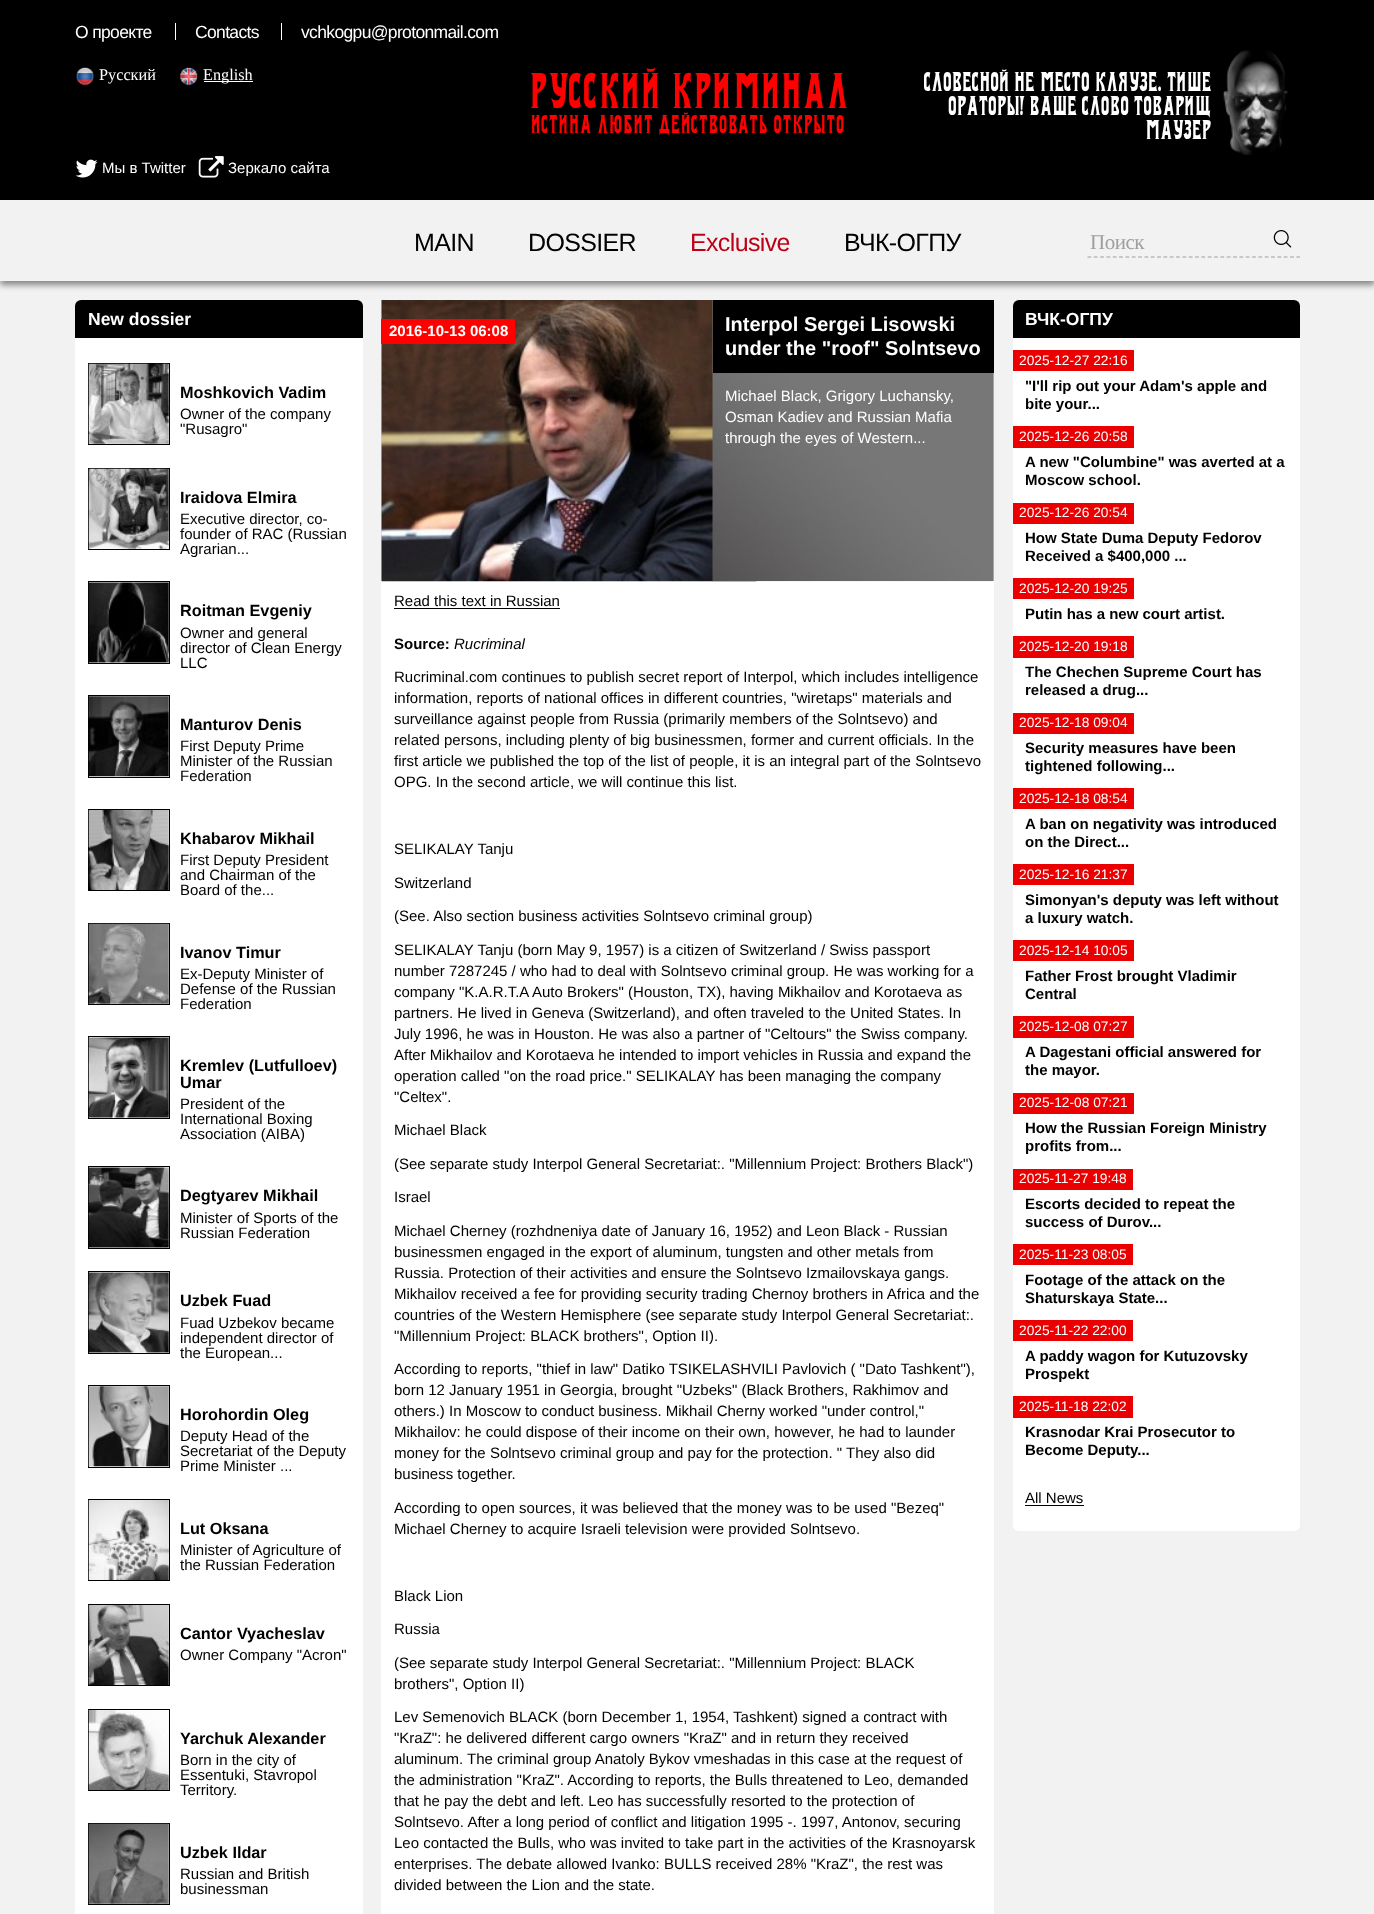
(async () => {
  const canvas = document.querySelector("canvas");
  canvas.width = 1374;
  canvas.height = 1914;
  const ctx = canvas.getContext("2d");
  ctx.miterLimit = 4;
  ctx.fontKerning = "normal";
  async function loadImage(src) {
    const img = new Image();
    img.src = src;
    await img.decode();
    return img;
  }
  let path;

  ctx.fillStyle = "#f2f2f2";
  ctx.fillRect(0, 0, 1374, 1914);
  for (const [x, y, w, h, color] of [
    [0, 0, 1374, 200, "#000000"],
    [175, 23, 1, 17, "#ffffff"],
    [281, 23, 1, 17, "#ffffff"],
  ]) {
    ctx.fillStyle = color;
    ctx.fillRect(x, y, w, h);
  }
  ctx.drawImage(await loadImage("img/1.png"), 76, 67, 18, 19);
  ctx.drawImage(await loadImage("img/2.png"), 179, 67, 19, 19);
  ctx.fillRect(204, 81, 49, 1);
  ctx.drawImage(await loadImage("img/3.png"), 1223, 50, 65, 105);
  ctx.drawImage(await loadImage("img/4.png"), 75, 159, 23, 19);
  ctx.drawImage(await loadImage("img/5.png"), 198, 156, 26, 22);
  ctx.save();
  path = new Path2D("M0 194H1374V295H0ZM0 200H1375V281H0Z");
  ctx.clip(path, "evenodd");
  ctx.fillStyle = "rgba(0, 0, 0, 0.45)";
  ctx.filter = "blur(3px)";
  ctx.beginPath();
  ctx.rect(0, 204, 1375, 81);
  ctx.fill();
  ctx.filter = "none";
  ctx.restore();
  path = new Path2D("M1087.5 257H1300");
  ctx.strokeStyle = "#9e9e9e";
  ctx.lineWidth = 1.2;
  ctx.setLineDash([3.75, 2.58]);
  ctx.stroke(path);
  ctx.drawImage(await loadImage("img/6.png"), 1273, 230, 19, 18);
  ctx.beginPath();
  ctx.roundRect(75, 300, 288, 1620, 6);
  ctx.fill();
  ctx.fillStyle = "#000000";
  ctx.beginPath();
  ctx.roundRect(75, 300, 288, 38, [6, 6, 0, 0]);
  ctx.fill();
  ctx.strokeStyle = "#000000";
  ctx.lineWidth = 1;
  ctx.setLineDash([]);
  ctx.strokeRect(88.5, 363.5, 81, 81);
  ctx.drawImage(await loadImage("img/7.png"), 88, 363, 81, 81);
  ctx.strokeRect(88.5, 468.5, 81, 81);
  ctx.drawImage(await loadImage("img/8.png"), 88, 468, 81, 81);
  ctx.strokeRect(88.5, 581.5, 81, 82);
  ctx.drawImage(await loadImage("img/9.png"), 88, 582, 81, 81);
  ctx.strokeRect(88.5, 695.5, 81, 82);
  ctx.drawImage(await loadImage("img/10.png"), 88, 696, 81, 81);
  ctx.strokeRect(88.5, 809.5, 81, 81);
  ctx.drawImage(await loadImage("img/11.png"), 88, 810, 81, 80);
  ctx.strokeRect(88.5, 923.5, 81, 81);
  ctx.drawImage(await loadImage("img/12.png"), 88, 923, 81, 81);
  ctx.strokeRect(88.5, 1036.5, 81, 82);
  ctx.drawImage(await loadImage("img/13.png"), 88, 1037, 81, 81);
  ctx.strokeRect(88.5, 1166.5, 81, 82);
  ctx.drawImage(await loadImage("img/14.png"), 88, 1167, 81, 81);
  ctx.strokeRect(88.5, 1271.5, 81, 82);
  ctx.drawImage(await loadImage("img/15.png"), 88, 1272, 81, 81);
  ctx.strokeRect(88.5, 1385.5, 81, 82);
  ctx.drawImage(await loadImage("img/16.png"), 88, 1386, 81, 81);
  ctx.strokeRect(88.5, 1499.5, 81, 81);
  ctx.drawImage(await loadImage("img/17.png"), 88, 1500, 81, 80);
  ctx.strokeRect(88.5, 1604.5, 81, 81);
  ctx.drawImage(await loadImage("img/18.png"), 88, 1605, 81, 80);
  ctx.strokeRect(88.5, 1709.5, 81, 81);
  ctx.drawImage(await loadImage("img/19.png"), 88, 1710, 81, 80);
  ctx.strokeRect(88.5, 1823.5, 81, 81);
  ctx.drawImage(await loadImage("img/20.png"), 88, 1823, 81, 81);
  ctx.fillStyle = "#ffffff";
  ctx.fillRect(381, 581, 613, 1333);
  ctx.fillStyle = "#cccccc";
  ctx.fillRect(381, 300, 613, 281);
  ctx.drawImage(await loadImage("img/21.png"), 381, 300, 376, 282);
  ctx.drawImage(await loadImage("img/22.png"), 712, 300, 282, 282);
  for (const [x, y, w, h, color] of [
    [713, 300, 281, 73, "#000000"],
    [381, 319, 134, 25, "#ff0000"],
    [394, 608, 166, 1, "#000000"],
  ]) {
    ctx.fillStyle = color;
    ctx.fillRect(x, y, w, h);
  }
  ctx.fillStyle = "#ffffff";
  ctx.beginPath();
  ctx.roundRect(1013, 300, 287, 1231, 6);
  ctx.fill();
  ctx.fillStyle = "#000000";
  ctx.beginPath();
  ctx.roundRect(1013, 300, 287, 38, [6, 6, 0, 0]);
  ctx.fill();
  for (const [x, y, w, h, color] of [
    [1013, 350, 121, 21, "#ea0000"],
    [1013, 426, 121, 22, "#ea0000"],
    [1013, 503, 121, 21, "#ea0000"],
    [1013, 578, 121, 21, "#ea0000"],
    [1013, 636, 121, 22, "#ea0000"],
    [1013, 713, 121, 21, "#ea0000"],
    [1013, 788, 121, 21, "#ea0000"],
    [1013, 864, 121, 21, "#ea0000"],
    [1013, 940, 121, 21, "#ea0000"],
    [1013, 1016, 121, 22, "#ea0000"],
    [1013, 1093, 121, 21, "#ea0000"],
    [1013, 1169, 120, 21, "#ea0000"],
    [1013, 1244, 120, 21, "#ea0000"],
    [1013, 1320, 120, 21, "#ea0000"],
    [1013, 1396, 120, 22, "#ea0000"],
    [1025, 1505, 59, 1, "#000000"],
  ]) {
    ctx.fillStyle = color;
    ctx.fillRect(x, y, w, h);
  }
  ctx.letterSpacing = "-0.65px";
  ctx.font = "17.5px Liberation Sans";
  ctx.fillStyle = "#ffffff";
  for (const [text, x, y] of [
    ["О проекте", 75, 38],
    ["Contacts", 195, 38],
    ["vchkogpu@protonmail.com", 301, 38],
  ]) {
    ctx.fillText(text, x, y);
  }
  ctx.letterSpacing = "0px";
  ctx.font = "16.25px Liberation Serif";
  ctx.fillText("Русский", 99, 80);
  ctx.fillText("English", 203, 80);
  ctx.font = "43.75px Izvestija";
  ctx.fillStyle = "#ff0000";
  ctx.fillText("Русский Криминал", 528, 108);
  ctx.font = "22.5px Izvestija";
  ctx.fillText("ИСТИНА ЛЮБИТ ДЕЙСТВОВАТЬ ОТКРЫТО", 530, 133);
  ctx.letterSpacing = "-0.65px";
  ctx.font = "23.75px Izvestija";
  ctx.fillStyle = "#ffffff";
  for (const [text, x, y] of [
    ["Словесной не место кляузе. Тише", 923, 91],
    ["ораторы! Ваше слово товарищ", 947, 115],
    ["Маузер", 1144, 139],
  ]) {
    ctx.fillText(text, x, y);
  }
  ctx.letterSpacing = "0px";
  ctx.font = "15px Liberation Sans";
  ctx.fillText("Мы в Twitter", 102, 173);
  ctx.fillText("Зеркало сайта", 228, 173);
  ctx.letterSpacing = "-0.65px";
  ctx.font = "25px Liberation Sans";
  ctx.fillStyle = "#000000";
  ctx.fillText("MAIN", 414, 251);
  ctx.fillText("DOSSIER", 528, 251);
  ctx.fillStyle = "#be0017";
  ctx.fillText("Exclusive", 690, 251);
  ctx.fillStyle = "#000000";
  ctx.fillText("ВЧК-ОГПУ", 844, 251);
  ctx.letterSpacing = "-0.5px";
  ctx.font = "21px Liberation Serif";
  ctx.fillStyle = "#9e9e9e";
  ctx.fillText("Поиск", 1090, 249);
  ctx.letterSpacing = "0px";
  ctx.font = "bold 17.5px Liberation Sans";
  ctx.fillStyle = "#ffffff";
  ctx.fillText("New dossier", 88, 325);
  ctx.font = "bold 16.25px Liberation Sans";
  ctx.fillStyle = "#000000";
  ctx.fillText("Moshkovich Vadim", 180, 398);
  ctx.font = "15px Liberation Sans";
  ctx.fillText("Owner of the company", 180, 419);
  ctx.fillText("\"Rusagro\"", 180, 434);
  ctx.font = "bold 16.25px Liberation Sans";
  ctx.fillText("Iraidova Elmira", 180, 503);
  ctx.font = "15px Liberation Sans";
  for (const [text, x, y] of [
    ["Executive director, co-", 180, 524],
    ["founder of RAC (Russian", 180, 539],
    ["Agrarian...", 180, 554],
  ]) {
    ctx.fillText(text, x, y);
  }
  ctx.font = "bold 16.25px Liberation Sans";
  ctx.fillText("Roitman Evgeniy", 180, 616);
  ctx.font = "15px Liberation Sans";
  for (const [text, x, y] of [
    ["Owner and general", 180, 638],
    ["director of Clean Energy", 180, 653],
    ["LLC", 180, 668],
  ]) {
    ctx.fillText(text, x, y);
  }
  ctx.font = "bold 16.25px Liberation Sans";
  ctx.fillText("Manturov Denis", 180, 730);
  ctx.font = "15px Liberation Sans";
  for (const [text, x, y] of [
    ["First Deputy Prime", 180, 751],
    ["Minister of the Russian", 180, 766],
    ["Federation", 180, 781],
  ]) {
    ctx.fillText(text, x, y);
  }
  ctx.font = "bold 16.25px Liberation Sans";
  ctx.fillText("Khabarov Mikhail", 180, 844);
  ctx.font = "15px Liberation Sans";
  for (const [text, x, y] of [
    ["First Deputy President", 180, 865],
    ["and Chairman of the", 180, 880],
    ["Board of the...", 180, 895],
  ]) {
    ctx.fillText(text, x, y);
  }
  ctx.font = "bold 16.25px Liberation Sans";
  ctx.fillText("Ivanov Timur", 180, 958);
  ctx.font = "15px Liberation Sans";
  for (const [text, x, y] of [
    ["Ex-Deputy Minister of", 180, 979],
    ["Defense of the Russian", 180, 994],
    ["Federation", 180, 1009],
  ]) {
    ctx.fillText(text, x, y);
  }
  ctx.font = "bold 16.25px Liberation Sans";
  ctx.fillText("Kremlev (Lutfulloev)", 180, 1071);
  ctx.fillText("Umar", 180, 1088);
  ctx.font = "15px Liberation Sans";
  for (const [text, x, y] of [
    ["President of the", 180, 1109],
    ["International Boxing", 180, 1124],
    ["Association (AIBA)", 180, 1139],
  ]) {
    ctx.fillText(text, x, y);
  }
  ctx.font = "bold 16.25px Liberation Sans";
  ctx.fillText("Degtyarev Mikhail", 180, 1201);
  ctx.font = "15px Liberation Sans";
  ctx.fillText("Minister of Sports of the", 180, 1223);
  ctx.fillText("Russian Federation", 180, 1238);
  ctx.font = "bold 16.25px Liberation Sans";
  ctx.fillText("Uzbek Fuad", 180, 1306);
  ctx.font = "15px Liberation Sans";
  for (const [text, x, y] of [
    ["Fuad Uzbekov became", 180, 1328],
    ["independent director of", 180, 1343],
    ["the European...", 180, 1358],
  ]) {
    ctx.fillText(text, x, y);
  }
  ctx.font = "bold 16.25px Liberation Sans";
  ctx.fillText("Horohordin Oleg", 180, 1420);
  ctx.font = "15px Liberation Sans";
  for (const [text, x, y] of [
    ["Deputy Head of the", 180, 1441],
    ["Secretariat of the Deputy", 180, 1456],
    ["Prime Minister ...", 180, 1471],
  ]) {
    ctx.fillText(text, x, y);
  }
  ctx.font = "bold 16.25px Liberation Sans";
  ctx.fillText("Lut Oksana", 180, 1534);
  ctx.font = "15px Liberation Sans";
  ctx.fillText("Minister of Agriculture of", 180, 1555);
  ctx.fillText("the Russian Federation", 180, 1570);
  ctx.font = "bold 16.25px Liberation Sans";
  ctx.fillText("Cantor Vyacheslav", 180, 1639);
  ctx.font = "15px Liberation Sans";
  ctx.fillText("Owner Company \"Acron\"", 180, 1660);
  ctx.font = "bold 16.25px Liberation Sans";
  ctx.fillText("Yarchuk Alexander", 180, 1744);
  ctx.font = "15px Liberation Sans";
  for (const [text, x, y] of [
    ["Born in the city of", 180, 1765],
    ["Essentuki, Stavropol", 180, 1780],
    ["Territory.", 180, 1795],
  ]) {
    ctx.fillText(text, x, y);
  }
  ctx.font = "bold 16.25px Liberation Sans";
  ctx.fillText("Uzbek Ildar", 180, 1858);
  ctx.font = "15px Liberation Sans";
  ctx.fillText("Russian and British", 180, 1879);
  ctx.fillText("businessman", 180, 1894);
  ctx.font = "bold 20px Liberation Sans";
  ctx.fillStyle = "#ffffff";
  ctx.fillText("Interpol Sergei Lisowski", 725, 331);
  ctx.fillText("under the \"roof\" Solntsevo", 725, 355);
  ctx.font = "15px Liberation Sans";
  for (const [text, x, y] of [
    ["Michael Black, Grigory Luchansky,", 725, 401],
    ["Osman Kadiev and Russian Mafia", 725, 422],
    ["through the eyes of Western...", 725, 443],
  ]) {
    ctx.fillText(text, x, y);
  }
  ctx.font = "bold 15px Liberation Sans";
  ctx.fillText("2016-10-13 06:08", 389, 336);
  ctx.font = "15px Liberation Sans";
  ctx.fillStyle = "#000000";
  ctx.fillText("Read this text in Russian", 394, 606);
  ctx.font = "bold 15px Liberation Sans";
  ctx.fillText("Source:", 394, 649);
  ctx.font = "italic 15px Liberation Sans";
  ctx.fillText("Rucriminal", 454, 649);
  ctx.font = "15px Liberation Sans";
  for (const [text, x, y] of [
    ["Rucriminal.com continues to publish secret report of Interpol, which includes intelligence", 394, 682],
    ["information, reports of national offices in different countries, \"wiretaps\" materials and", 394, 703],
    ["surveillance against people from Russia (primarily members of the Solntsevo) and", 394, 724],
    ["related persons, including plenty of big businessmen, former and current officials. In the", 394, 745],
    ["first article we published the top of the list of people, it is an integral part of the Solntsevo", 394, 766],
    ["OPG. In the second article, we will continue this list.", 394, 787],
    ["SELIKALAY Tanju", 394, 854],
    ["Switzerland", 394, 888],
    ["(See. Also section business activities Solntsevo criminal group)", 394, 921],
    ["SELIKALAY Tanju (born May 9, 1957) is a citizen of Switzerland / Swiss passport", 394, 955],
    ["number 7287245 / who had to deal with Solntsevo criminal group. He was working for a", 394, 976],
    ["company \"K.A.R.T.A Auto Brokers\" (Houston, TX), having Mikhailov and Korotaeva as", 394, 997],
    ["partners. He lived in Geneva (Switzerland), and often traveled to the United States. In", 394, 1018],
    ["July 1996, he was in Houston. He was also a partner of \"Celtours\" the Swiss company.", 394, 1039],
    ["After Mikhailov and Korotaeva he intended to import vehicles in Russia and expand the", 394, 1060],
    ["operation called \"on the road price.\" SELIKALAY has been managing the company", 394, 1081],
    ["\"Celtex\".", 394, 1102],
    ["Michael Black", 394, 1135],
    ["(See separate study Interpol General Secretariat:. \"Millennium Project: Brothers Black\")", 394, 1169],
    ["Israel", 394, 1202],
    ["Michael Cherney (rozhdneniya date of January 16, 1952) and Leon Black - Russian", 394, 1236],
    ["businessmen engaged in the export of aluminum, tungsten and other metals from", 394, 1257],
    ["Russia. Protection of their activities and ensure the Solntsevo Izmailovskaya gangs.", 394, 1278],
    ["Mikhailov received a fee for providing security trading Chernoy brothers in Africa and the", 394, 1299],
    ["countries of the Western Hemisphere (see separate study Interpol General Secretariat:.", 394, 1320],
    ["\"Millennium Project: BLACK brothers\", Option II).", 394, 1341],
    ["According to reports, \"thief in law\" Datiko TSIKELASHVILI Pavlovich ( \"Dato Tashkent\"),", 394, 1374],
    ["born 12 January 1951 in Georgia, brought \"Uzbeks\" (Black Brothers, Rakhimov and", 394, 1395],
    ["others.) In Moscow to conduct business. Mikhail Cherny worked \"under control,\"", 394, 1416],
    ["Mikhailov: he could dispose of their income on their own, however, he had to launder", 394, 1437],
    ["money for the Solntsevo criminal group and pay for the protection. \" They also did", 394, 1458],
    ["business together.", 394, 1479],
    ["According to open sources, it was believed that the money was to be used \"Bezeq\"", 394, 1513],
    ["Michael Cherney to acquire Israeli television were provided Solntsevo.", 394, 1534],
    ["Black Lion", 394, 1601],
    ["Russia", 394, 1634],
    ["(See separate study Interpol General Secretariat:. \"Millennium Project: BLACK", 394, 1668],
    ["brothers\", Option II)", 394, 1689],
    ["Lev Semenovich BLACK (born December 1, 1954, Tashkent) signed a contract with", 394, 1722],
    ["\"KraZ\": he delivered different cargo owners \"KraZ\" and in return they received", 394, 1743],
    ["aluminum. The criminal group Anatoly Bykov vmeshadas in this case at the request of", 394, 1764],
    ["the administration \"KraZ\". According to reports, the Bulls threatened to Leo, demanded", 394, 1785],
    ["that he pay the debt and left. Leo has successfully resorted to the protection of", 394, 1806],
    ["Solntsevo. After a long period of conflict and litigation 1995 -. 1997, Antonov, securing", 394, 1827],
    ["Leo contacted the Bulls, who was invited to take part in the activities of the Krasnoyarsk", 394, 1848],
    ["enterprises. The debate allowed Ivanko: BULLS received 28% \"KraZ\", the rest was", 394, 1869],
    ["divided between the Lion and the state.", 394, 1890],
  ]) {
    ctx.fillText(text, x, y);
  }
  ctx.font = "bold 17.5px Liberation Sans";
  ctx.fillStyle = "#ffffff";
  ctx.fillText("ВЧК-ОГПУ", 1025, 325);
  ctx.font = "13.75px Liberation Sans";
  ctx.fillText("2025-12-27 22:16", 1019, 365);
  ctx.font = "bold 15px Liberation Sans";
  ctx.fillStyle = "#000000";
  ctx.fillText("\"I'll rip out your Adam's apple and", 1025, 391);
  ctx.fillText("bite your...", 1025, 409);
  ctx.font = "13.75px Liberation Sans";
  ctx.fillStyle = "#ffffff";
  ctx.fillText("2025-12-26 20:58", 1019, 441);
  ctx.font = "bold 15px Liberation Sans";
  ctx.fillStyle = "#000000";
  ctx.fillText("A new \"Columbine\" was averted at a", 1025, 467);
  ctx.fillText("Moscow school.", 1025, 485);
  ctx.font = "13.75px Liberation Sans";
  ctx.fillStyle = "#ffffff";
  ctx.fillText("2025-12-26 20:54", 1019, 517);
  ctx.font = "bold 15px Liberation Sans";
  ctx.fillStyle = "#000000";
  ctx.fillText("How State Duma Deputy Fedorov", 1025, 543);
  ctx.fillText("Received a $400,000 ...", 1025, 561);
  ctx.font = "13.75px Liberation Sans";
  ctx.fillStyle = "#ffffff";
  ctx.fillText("2025-12-20 19:25", 1019, 593);
  ctx.font = "bold 15px Liberation Sans";
  ctx.fillStyle = "#000000";
  ctx.fillText("Putin has a new court artist.", 1025, 619);
  ctx.font = "13.75px Liberation Sans";
  ctx.fillStyle = "#ffffff";
  ctx.fillText("2025-12-20 19:18", 1019, 651);
  ctx.font = "bold 15px Liberation Sans";
  ctx.fillStyle = "#000000";
  ctx.fillText("The Chechen Supreme Court has", 1025, 677);
  ctx.fillText("released a drug...", 1025, 695);
  ctx.font = "13.75px Liberation Sans";
  ctx.fillStyle = "#ffffff";
  ctx.fillText("2025-12-18 09:04", 1019, 727);
  ctx.font = "bold 15px Liberation Sans";
  ctx.fillStyle = "#000000";
  ctx.fillText("Security measures have been", 1025, 753);
  ctx.fillText("tightened following...", 1025, 771);
  ctx.font = "13.75px Liberation Sans";
  ctx.fillStyle = "#ffffff";
  ctx.fillText("2025-12-18 08:54", 1019, 803);
  ctx.font = "bold 15px Liberation Sans";
  ctx.fillStyle = "#000000";
  ctx.fillText("A ban on negativity was introduced", 1025, 829);
  ctx.fillText("on the Direct...", 1025, 847);
  ctx.font = "13.75px Liberation Sans";
  ctx.fillStyle = "#ffffff";
  ctx.fillText("2025-12-16 21:37", 1019, 879);
  ctx.font = "bold 15px Liberation Sans";
  ctx.fillStyle = "#000000";
  ctx.fillText("Simonyan's deputy was left without", 1025, 905);
  ctx.fillText("a luxury watch.", 1025, 923);
  ctx.font = "13.75px Liberation Sans";
  ctx.fillStyle = "#ffffff";
  ctx.fillText("2025-12-14 10:05", 1019, 955);
  ctx.font = "bold 15px Liberation Sans";
  ctx.fillStyle = "#000000";
  ctx.fillText("Father Frost brought Vladimir", 1025, 981);
  ctx.fillText("Central", 1025, 999);
  ctx.font = "13.75px Liberation Sans";
  ctx.fillStyle = "#ffffff";
  ctx.fillText("2025-12-08 07:27", 1019, 1031);
  ctx.font = "bold 15px Liberation Sans";
  ctx.fillStyle = "#000000";
  ctx.fillText("A Dagestani official answered for", 1025, 1057);
  ctx.fillText("the mayor.", 1025, 1075);
  ctx.font = "13.75px Liberation Sans";
  ctx.fillStyle = "#ffffff";
  ctx.fillText("2025-12-08 07:21", 1019, 1107);
  ctx.font = "bold 15px Liberation Sans";
  ctx.fillStyle = "#000000";
  ctx.fillText("How the Russian Foreign Ministry", 1025, 1133);
  ctx.fillText("profits from...", 1025, 1151);
  ctx.font = "13.75px Liberation Sans";
  ctx.fillStyle = "#ffffff";
  ctx.fillText("2025-11-27 19:48", 1019, 1183);
  ctx.font = "bold 15px Liberation Sans";
  ctx.fillStyle = "#000000";
  ctx.fillText("Escorts decided to repeat the", 1025, 1209);
  ctx.fillText("success of Durov...", 1025, 1227);
  ctx.font = "13.75px Liberation Sans";
  ctx.fillStyle = "#ffffff";
  ctx.fillText("2025-11-23 08:05", 1019, 1259);
  ctx.font = "bold 15px Liberation Sans";
  ctx.fillStyle = "#000000";
  ctx.fillText("Footage of the attack on the", 1025, 1285);
  ctx.fillText("Shaturskaya State...", 1025, 1303);
  ctx.font = "13.75px Liberation Sans";
  ctx.fillStyle = "#ffffff";
  ctx.fillText("2025-11-22 22:00", 1019, 1335);
  ctx.font = "bold 15px Liberation Sans";
  ctx.fillStyle = "#000000";
  ctx.fillText("A paddy wagon for Kutuzovsky", 1025, 1361);
  ctx.fillText("Prospekt", 1025, 1379);
  ctx.font = "13.75px Liberation Sans";
  ctx.fillStyle = "#ffffff";
  ctx.fillText("2025-11-18 22:02", 1019, 1411);
  ctx.font = "bold 15px Liberation Sans";
  ctx.fillStyle = "#000000";
  ctx.fillText("Krasnodar Krai Prosecutor to", 1025, 1437);
  ctx.fillText("Become Deputy...", 1025, 1455);
  ctx.font = "15px Liberation Sans";
  ctx.fillText("All News", 1025, 1503);
})();
